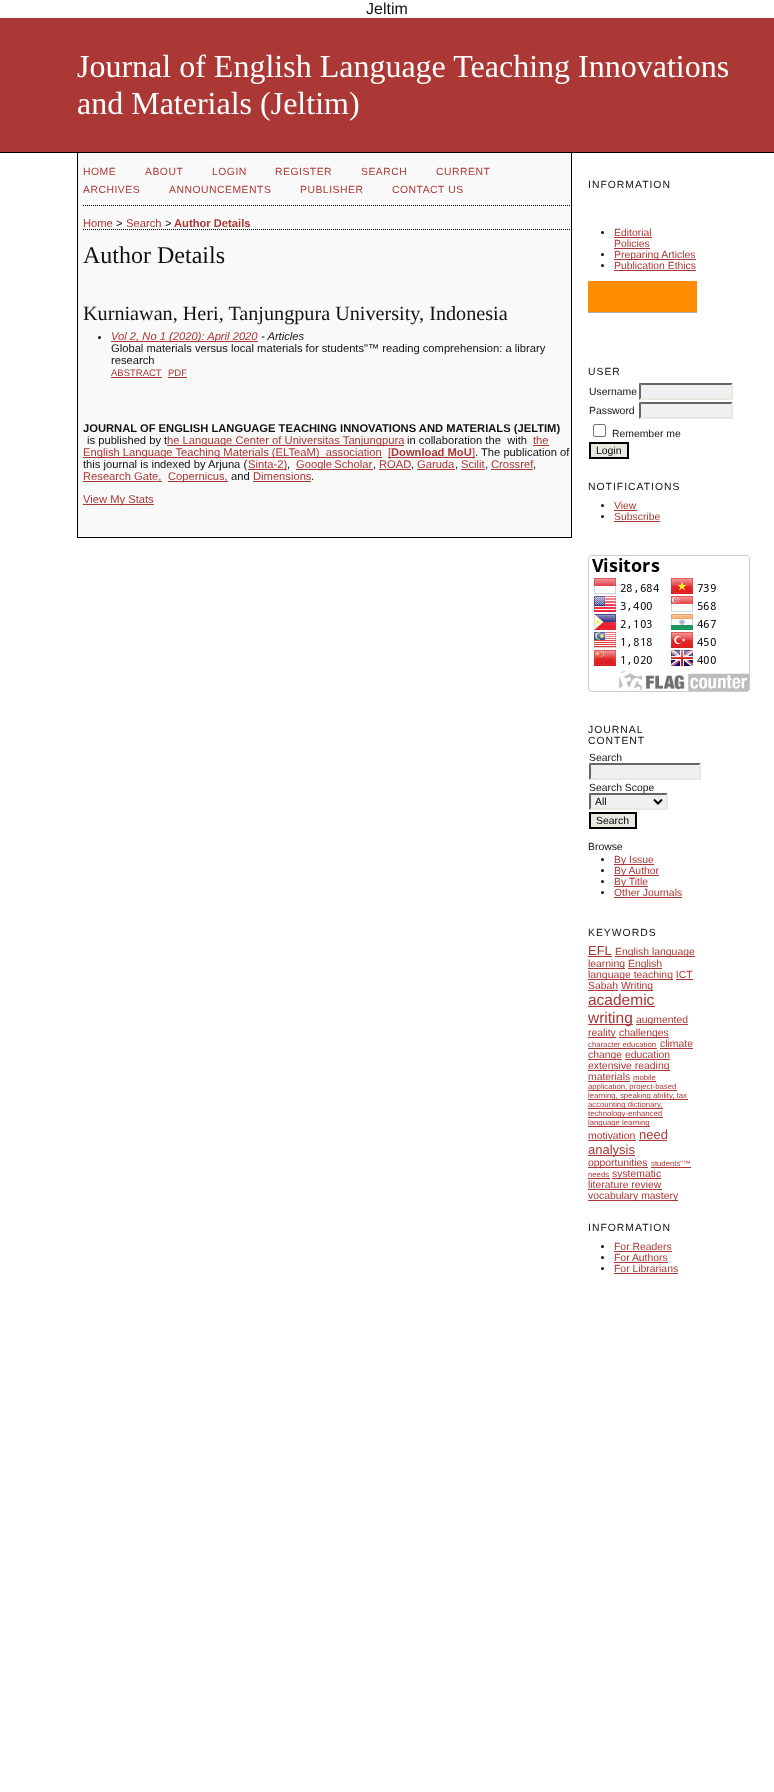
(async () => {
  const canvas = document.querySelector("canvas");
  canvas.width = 774;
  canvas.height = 1792;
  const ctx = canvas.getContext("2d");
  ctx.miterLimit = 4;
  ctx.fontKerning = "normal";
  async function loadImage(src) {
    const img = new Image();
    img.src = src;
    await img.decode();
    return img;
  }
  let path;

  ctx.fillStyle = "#ffffff";
  ctx.fillRect(0, 0, 774, 1792);
  for (const [x, y, w, h, color] of [
    [0, 18, 774, 134, "#ab3834"],
    [0, 152, 774, 1, "#000000"],
    [78, 153, 493, 384, "#f9f9f9"],
    [571, 153, 1, 385, "#000000"],
    [77, 537, 495, 1, "#000000"],
    [77, 153, 1, 385, "#000000"],
  ]) {
    ctx.fillStyle = color;
    ctx.fillRect(x, y, w, h);
  }
  path = new Path2D("M83 205.5H571");
  ctx.strokeStyle = "#000000";
  ctx.setLineDash([1, 1]);
  ctx.stroke(path);
  path = new Path2D("M83 229.5H571");
  ctx.stroke(path);
  ctx.fillStyle = "#111111";
  ctx.beginPath();
  ctx.arc(99.5, 337.5, 1.5, 0, Math.PI * 2);
  ctx.fill();
  for (const [x, y, w, h, color] of [
    [111, 341, 147, 1, "#ab3834"],
    [111, 377, 51, 1, "#ab3834"],
    [168, 377, 19, 1, "#ab3834"],
    [167, 445, 237, 1, "#ab3834"],
    [533, 445, 16, 1, "#ab3834"],
    [83, 457, 299, 1, "#ab3834"],
    [388, 457, 3, 1, "#ab3834"],
    [391, 457, 84, 1, "#ab3834"],
    [248, 469, 39, 1, "#ab3834"],
    [296, 469, 77, 1, "#ab3834"],
    [379, 469, 32, 1, "#ab3834"],
    [417, 469, 38, 1, "#ab3834"],
    [461, 469, 24, 1, "#ab3834"],
    [491, 469, 42, 1, "#ab3834"],
    [83, 481, 79, 1, "#ab3834"],
    [168, 481, 60, 1, "#ab3834"],
    [253, 481, 58, 1, "#ab3834"],
    [83, 504, 71, 1, "#ab3834"],
  ]) {
    ctx.fillStyle = color;
    ctx.fillRect(x, y, w, h);
  }
  ctx.fillStyle = "#111111";
  ctx.beginPath();
  ctx.arc(602.5, 232.5, 1.5, 0, Math.PI * 2);
  ctx.fill();
  ctx.fillStyle = "#ab3834";
  ctx.fillRect(614, 237, 38, 1);
  ctx.fillRect(614, 248, 36, 1);
  ctx.fillStyle = "#111111";
  ctx.beginPath();
  ctx.arc(602.5, 254.5, 1.5, 0, Math.PI * 2);
  ctx.fill();
  ctx.fillStyle = "#ab3834";
  ctx.fillRect(614, 259, 82, 1);
  ctx.fillStyle = "#111111";
  ctx.beginPath();
  ctx.arc(602.5, 265.5, 1.5, 0, Math.PI * 2);
  ctx.fill();
  for (const [x, y, w, h, color] of [
    [614, 270, 82, 1, "#ab3834"],
    [588, 281, 109, 31, "#ff8c00"],
    [588, 312, 109, 1, "#aaaaaa"],
    [639, 383, 94, 17, "#f0f0f0"],
  ]) {
    ctx.fillStyle = color;
    ctx.fillRect(x, y, w, h);
  }
  ctx.fillStyle = "#666666";
  path = new Path2D("M639 383H733L731 385H641Z");
  ctx.fill(path);
  ctx.fillStyle = "#e8e8e1";
  path = new Path2D("M733 383V400L731 398V385Z");
  ctx.fill(path);
  path = new Path2D("M733 400H639L641 398H731Z");
  ctx.fill(path);
  ctx.fillStyle = "#666666";
  path = new Path2D("M639 400V383L641 385V398Z");
  ctx.fill(path);
  ctx.fillStyle = "#f0f0f0";
  ctx.fillRect(639, 402, 94, 17);
  ctx.fillStyle = "#666666";
  path = new Path2D("M639 402H733L731 404H641Z");
  ctx.fill(path);
  ctx.fillStyle = "#e8e8e1";
  path = new Path2D("M733 402V419L731 417V404Z");
  ctx.fill(path);
  path = new Path2D("M733 419H639L641 417H731Z");
  ctx.fill(path);
  ctx.fillStyle = "#666666";
  path = new Path2D("M639 419V402L641 404V417Z");
  ctx.fill(path);
  ctx.beginPath();
  ctx.roundRect(593.5, 424.5, 12, 12, 1.5);
  ctx.strokeStyle = "#767676";
  ctx.setLineDash([]);
  ctx.stroke();
  ctx.fillStyle = "#e8e8e1";
  ctx.beginPath();
  ctx.rect(590, 443, 38, 15);
  ctx.fill();
  ctx.strokeStyle = "#000000";
  ctx.lineWidth = 2;
  ctx.stroke();
  ctx.fillStyle = "#111111";
  ctx.beginPath();
  ctx.arc(602.5, 505.5, 1.5, 0, Math.PI * 2);
  ctx.fill();
  ctx.fillStyle = "#ab3834";
  ctx.fillRect(614, 510, 23, 1);
  ctx.fillStyle = "#111111";
  ctx.beginPath();
  ctx.arc(602.5, 516.5, 1.5, 0, Math.PI * 2);
  ctx.fill();
  ctx.fillStyle = "#ab3834";
  ctx.fillRect(614, 521, 46, 1);
  ctx.drawImage(await loadImage("img/1.png"), 588, 555, 162, 137);
  ctx.fillStyle = "#f0f0f0";
  ctx.fillRect(589, 763, 112, 17);
  ctx.fillStyle = "#666666";
  path = new Path2D("M589 763H701L699 765H591Z");
  ctx.fill(path);
  ctx.fillStyle = "#e8e8e1";
  path = new Path2D("M701 763V780L699 778V765Z");
  ctx.fill(path);
  path = new Path2D("M701 780H589L591 778H699Z");
  ctx.fill(path);
  ctx.fillStyle = "#666666";
  path = new Path2D("M589 780V763L591 765V778Z");
  ctx.fill(path);
  ctx.fillStyle = "#e8e8e1";
  ctx.beginPath();
  ctx.rect(590, 813, 46, 15);
  ctx.fill();
  ctx.stroke();
  ctx.fillStyle = "#111111";
  ctx.beginPath();
  ctx.arc(602.5, 859.5, 1.5, 0, Math.PI * 2);
  ctx.fill();
  ctx.fillStyle = "#ab3834";
  ctx.fillRect(614, 864, 40, 1);
  ctx.fillStyle = "#111111";
  ctx.beginPath();
  ctx.arc(602.5, 870.5, 1.5, 0, Math.PI * 2);
  ctx.fill();
  ctx.fillStyle = "#ab3834";
  ctx.fillRect(614, 875, 45, 1);
  ctx.fillStyle = "#111111";
  ctx.beginPath();
  ctx.arc(602.5, 881.5, 1.5, 0, Math.PI * 2);
  ctx.fill();
  ctx.fillStyle = "#ab3834";
  ctx.fillRect(614, 886, 34, 1);
  ctx.fillStyle = "#111111";
  ctx.beginPath();
  ctx.arc(602.5, 892.5, 1.5, 0, Math.PI * 2);
  ctx.fill();
  for (const [x, y, w, h, color] of [
    [614, 897, 68, 1, "#ab3834"],
    [588, 956, 24, 1, "#ab3834"],
    [615, 956, 80, 1, "#ab3834"],
    [588, 968, 37, 1, "#ab3834"],
    [628, 968, 34, 1, "#ab3834"],
    [588, 979, 85, 1, "#ab3834"],
    [676, 979, 17, 1, "#ab3834"],
    [588, 990, 30, 1, "#ab3834"],
    [621, 990, 32, 1, "#ab3834"],
    [588, 1006, 67, 1, "#ab3834"],
    [588, 1024, 45, 1, "#ab3834"],
    [636, 1024, 52, 1, "#ab3834"],
    [588, 1037, 28, 1, "#ab3834"],
    [619, 1037, 50, 1, "#ab3834"],
    [588, 1048, 69, 1, "#ab3834"],
    [660, 1048, 33, 1, "#ab3834"],
    [588, 1059, 34, 1, "#ab3834"],
    [625, 1059, 45, 1, "#ab3834"],
    [588, 1070, 82, 1, "#ab3834"],
    [588, 1081, 42, 1, "#ab3834"],
    [633, 1081, 23, 1, "#ab3834"],
    [588, 1090, 89, 1, "#ab3834"],
    [588, 1099, 100, 1, "#ab3834"],
    [588, 1108, 75, 1, "#ab3834"],
    [588, 1117, 75, 1, "#ab3834"],
    [588, 1126, 62, 1, "#ab3834"],
    [588, 1140, 48, 1, "#ab3834"],
    [639, 1140, 28, 1, "#ab3834"],
    [588, 1155, 47, 1, "#ab3834"],
    [588, 1167, 60, 1, "#ab3834"],
    [651, 1167, 40, 1, "#ab3834"],
    [588, 1178, 22, 1, "#ab3834"],
    [612, 1178, 49, 1, "#ab3834"],
    [588, 1189, 74, 1, "#ab3834"],
    [588, 1200, 90, 1, "#ab3834"],
  ]) {
    ctx.fillStyle = color;
    ctx.fillRect(x, y, w, h);
  }
  ctx.fillStyle = "#111111";
  ctx.beginPath();
  ctx.arc(602.5, 1246.5, 1.5, 0, Math.PI * 2);
  ctx.fill();
  ctx.fillStyle = "#ab3834";
  ctx.fillRect(614, 1251, 58, 1);
  ctx.fillStyle = "#111111";
  ctx.beginPath();
  ctx.arc(602.5, 1257.5, 1.5, 0, Math.PI * 2);
  ctx.fill();
  ctx.fillStyle = "#ab3834";
  ctx.fillRect(614, 1262, 54, 1);
  ctx.fillStyle = "#111111";
  ctx.beginPath();
  ctx.arc(602.5, 1268.5, 1.5, 0, Math.PI * 2);
  ctx.fill();
  ctx.fillStyle = "#ab3834";
  ctx.fillRect(614, 1273, 64, 1);
  ctx.font = "16px Liberation Sans";
  ctx.fillStyle = "#111111";
  ctx.fillText("Jeltim", 366, 14);
  ctx.font = "32px Liberation Serif";
  ctx.fillStyle = "#ffffff";
  ctx.fillText("Journal of English Language Teaching Innovations", 77, 77);
  ctx.fillText("and Materials (Jeltim)", 77, 114);
  ctx.letterSpacing = "0.5px";
  ctx.font = "10.4px Liberation Sans";
  ctx.fillStyle = "#ab3834";
  for (const [text, x, y] of [
    ["HOME", 83, 175],
    ["ABOUT", 145, 175],
    ["LOGIN", 212, 175],
    ["REGISTER", 275, 175],
    ["SEARCH", 361, 175],
    ["CURRENT", 436, 175],
    ["ARCHIVES", 83, 193],
    ["ANNOUNCEMENTS", 169, 193],
    ["PUBLISHER", 300, 193],
    ["CONTACT US", 392, 193],
  ]) {
    ctx.fillText(text, x, y);
  }
  ctx.letterSpacing = "0px";
  ctx.font = "11.2px Liberation Sans";
  ctx.fillText("Home", 83, 227);
  ctx.fillStyle = "#111111";
  ctx.fillText(">", 116, 227);
  ctx.fillStyle = "#ab3834";
  ctx.fillText("Search", 126, 227);
  ctx.fillStyle = "#111111";
  ctx.fillText(">", 165, 227);
  ctx.font = "bold 11.2px Liberation Sans";
  ctx.fillStyle = "#ab3834";
  ctx.fillText("Author Details", 174, 227);
  ctx.font = "24px Liberation Serif";
  ctx.fillStyle = "#111111";
  ctx.fillText("Author Details", 83, 263);
  ctx.font = "20.2px Liberation Serif";
  ctx.fillText("Kurniawan, Heri, Tanjungpura University, Indonesia", 83, 320);
  ctx.font = "italic 11.2px Liberation Sans";
  ctx.fillStyle = "#ab3834";
  ctx.fillText("Vol 2, No 1 (2020): April 2020", 111, 340);
  ctx.fillStyle = "#111111";
  ctx.fillText("- Articles", 261, 340);
  ctx.font = "11.2px Liberation Sans";
  ctx.fillText("Global materials versus local materials for students\"™ reading comprehension: a library", 111, 352);
  ctx.fillText("research", 111, 364);
  ctx.font = "9.5px Liberation Sans";
  ctx.fillStyle = "#ab3834";
  ctx.fillText("ABSTRACT", 111, 376);
  ctx.fillText("PDF", 168, 376);
  ctx.font = "bold 11.2px Liberation Sans";
  ctx.fillStyle = "#111111";
  ctx.fillText("JOURNAL OF ENGLISH LANGUAGE TEACHING INNOVATIONS AND MATERIALS (JELTIM)", 83, 432);
  ctx.font = "11.2px Liberation Sans";
  ctx.fillText("is published by t", 87, 444);
  ctx.fillStyle = "#ab3834";
  ctx.fillText("he Language Center of Universitas Tanjungpura", 167, 444);
  ctx.fillStyle = "#111111";
  ctx.fillText("in collaboration the  with", 407, 444);
  ctx.fillStyle = "#ab3834";
  for (const [text, x, y] of [
    ["the", 533, 444],
    ["English Language Teaching Materials (ELTeaM)  association", 83, 456],
    ["[", 388, 456],
  ]) {
    ctx.fillText(text, x, y);
  }
  ctx.font = "bold 11.2px Liberation Sans";
  ctx.fillText("Download MoU", 391, 456);
  ctx.font = "11.2px Liberation Sans";
  ctx.fillText("]", 472, 456);
  ctx.fillStyle = "#111111";
  ctx.fillText(". The publication of", 475, 456);
  ctx.fillText("this journal is indexed by Arjuna (", 83, 468);
  ctx.fillStyle = "#ab3834";
  ctx.fillText("Sinta-2)", 248, 468);
  ctx.fillStyle = "#111111";
  ctx.fillText(",", 287, 468);
  ctx.wordSpacing = "-1px";
  ctx.fillStyle = "#ab3834";
  ctx.fillText("Google Scholar", 296, 468);
  ctx.wordSpacing = "0px";
  ctx.fillStyle = "#111111";
  ctx.fillText(",", 373, 468);
  ctx.fillStyle = "#ab3834";
  ctx.fillText("ROAD", 379, 468);
  ctx.fillStyle = "#111111";
  ctx.fillText(",", 411, 468);
  ctx.fillStyle = "#ab3834";
  ctx.fillText("Garuda", 417, 468);
  ctx.fillStyle = "#111111";
  ctx.fillText(",", 455, 468);
  ctx.fillStyle = "#ab3834";
  ctx.fillText("Scilit", 461, 468);
  ctx.fillStyle = "#111111";
  ctx.fillText(",", 485, 468);
  ctx.fillStyle = "#ab3834";
  ctx.fillText("Crossref", 491, 468);
  ctx.fillStyle = "#111111";
  ctx.fillText(",", 533, 468);
  ctx.fillStyle = "#ab3834";
  ctx.fillText("Research Gate,", 83, 480);
  ctx.fillText("Copernicus,", 168, 480);
  ctx.fillStyle = "#111111";
  ctx.fillText("and", 231, 480);
  ctx.fillStyle = "#ab3834";
  ctx.fillText("Dimensions", 253, 480);
  ctx.fillStyle = "#111111";
  ctx.fillText(".", 311, 480);
  ctx.fillStyle = "#ab3834";
  ctx.fillText("View My Stats", 83, 503);
  ctx.letterSpacing = "1px";
  ctx.font = "10.4px Liberation Sans";
  ctx.fillStyle = "#111111";
  ctx.fillText("INFORMATION", 588, 188);
  ctx.letterSpacing = "0px";
  ctx.fillStyle = "#ab3834";
  for (const [text, x, y] of [
    ["Editorial", 614, 236],
    ["Policies", 614, 247],
    ["Preparing Articles", 614, 258],
    ["Publication Ethics", 614, 269],
  ]) {
    ctx.fillText(text, x, y);
  }
  ctx.letterSpacing = "1px";
  ctx.fillStyle = "#111111";
  ctx.fillText("USER", 588, 375);
  ctx.letterSpacing = "0px";
  for (const [text, x, y] of [
    ["Username", 589, 395],
    ["Password", 589, 414],
    ["Remember me", 612, 437],
  ]) {
    ctx.fillText(text, x, y);
  }
  ctx.fillStyle = "#000000";
  ctx.fillText("Login", 596, 454);
  ctx.letterSpacing = "1px";
  ctx.fillStyle = "#111111";
  ctx.fillText("NOTIFICATIONS", 588, 490);
  ctx.letterSpacing = "0px";
  ctx.fillStyle = "#ab3834";
  ctx.fillText("View", 614, 509);
  ctx.fillText("Subscribe", 614, 520);
  ctx.letterSpacing = "1px";
  ctx.fillStyle = "#111111";
  ctx.fillText("JOURNAL", 588, 733);
  ctx.fillText("CONTENT", 588, 744);
  ctx.letterSpacing = "0px";
  ctx.fillText("Search", 589, 761);
  ctx.fillText("Search Scope", 589, 791);
  ctx.fillStyle = "#f0f0f0";
  ctx.fillRect(589, 793, 79, 17);
  ctx.fillStyle = "#666666";
  path = new Path2D("M589 793H668L666 795H591Z");
  ctx.fill(path);
  ctx.fillStyle = "#e8e8e1";
  path = new Path2D("M668 793V810L666 808V795Z");
  ctx.fill(path);
  path = new Path2D("M668 810H589L591 808H666Z");
  ctx.fill(path);
  ctx.fillStyle = "#666666";
  path = new Path2D("M589 810V793L591 795V808Z");
  ctx.fill(path);
  path = new Path2D("M654 799.5L658 803.5L662 799.5");
  ctx.stroke(path);
  ctx.fillStyle = "#000000";
  ctx.fillText("All", 595, 805);
  ctx.fillText("Search", 596, 824);
  ctx.fillStyle = "#111111";
  ctx.fillText("Browse", 588, 850);
  ctx.fillStyle = "#ab3834";
  for (const [text, x, y] of [
    ["By Issue", 614, 863],
    ["By Author", 614, 874],
    ["By Title", 614, 885],
    ["Other Journals", 614, 896],
  ]) {
    ctx.fillText(text, x, y);
  }
  ctx.letterSpacing = "1px";
  ctx.fillStyle = "#111111";
  ctx.fillText("KEYWORDS", 588, 936);
  ctx.letterSpacing = "0px";
  ctx.font = "13px Liberation Sans";
  ctx.fillStyle = "#ab3834";
  ctx.fillText("EFL", 588, 955);
  ctx.font = "10.4px Liberation Sans";
  for (const [text, x, y] of [
    ["English language", 615, 955],
    ["learning", 588, 967],
    ["English", 628, 967],
    ["language teaching ICT", 588, 978],
    ["Sabah", 588, 989],
    ["Writing", 621, 989],
  ]) {
    ctx.fillText(text, x, y);
  }
  ctx.font = "15.5px Liberation Sans";
  ctx.fillText("academic", 588, 1005);
  ctx.fillText("writing", 588, 1023);
  ctx.font = "10.4px Liberation Sans";
  for (const [text, x, y] of [
    ["augmented", 636, 1023],
    ["reality", 588, 1036],
    ["challenges", 619, 1036],
  ]) {
    ctx.fillText(text, x, y);
  }
  ctx.font = "7.75px Liberation Sans";
  ctx.fillText("character education", 588, 1047);
  ctx.font = "10.4px Liberation Sans";
  for (const [text, x, y] of [
    ["climate", 660, 1047],
    ["change education", 588, 1058],
    ["extensive reading", 588, 1069],
    ["materials", 588, 1080],
  ]) {
    ctx.fillText(text, x, y);
  }
  ctx.font = "7.75px Liberation Sans";
  for (const [text, x, y] of [
    ["mobile", 633, 1080],
    ["application, project-based", 588, 1089],
    ["learning, speaking ability, tax", 588, 1098],
    ["accounting dictionary,", 588, 1107],
    ["technology-enhanced", 588, 1116],
    ["language learning", 588, 1125],
  ]) {
    ctx.fillText(text, x, y);
  }
  ctx.font = "10.4px Liberation Sans";
  ctx.fillText("motivation", 588, 1139);
  ctx.font = "13px Liberation Sans";
  ctx.fillText("need", 639, 1139);
  ctx.fillText("analysis", 588, 1154);
  ctx.font = "10.4px Liberation Sans";
  ctx.fillText("opportunities", 588, 1166);
  ctx.font = "7.75px Liberation Sans";
  ctx.fillText("students\"™", 651, 1166);
  ctx.fillText("needs", 588, 1177);
  ctx.font = "10.4px Liberation Sans";
  for (const [text, x, y] of [
    ["systematic", 612, 1177],
    ["literature review", 588, 1188],
    ["vocabulary mastery", 588, 1199],
  ]) {
    ctx.fillText(text, x, y);
  }
  ctx.letterSpacing = "1px";
  ctx.fillStyle = "#111111";
  ctx.fillText("INFORMATION", 588, 1231);
  ctx.letterSpacing = "0px";
  ctx.fillStyle = "#ab3834";
  for (const [text, x, y] of [
    ["For Readers", 614, 1250],
    ["For Authors", 614, 1261],
    ["For Librarians", 614, 1272],
  ]) {
    ctx.fillText(text, x, y);
  }
})();
